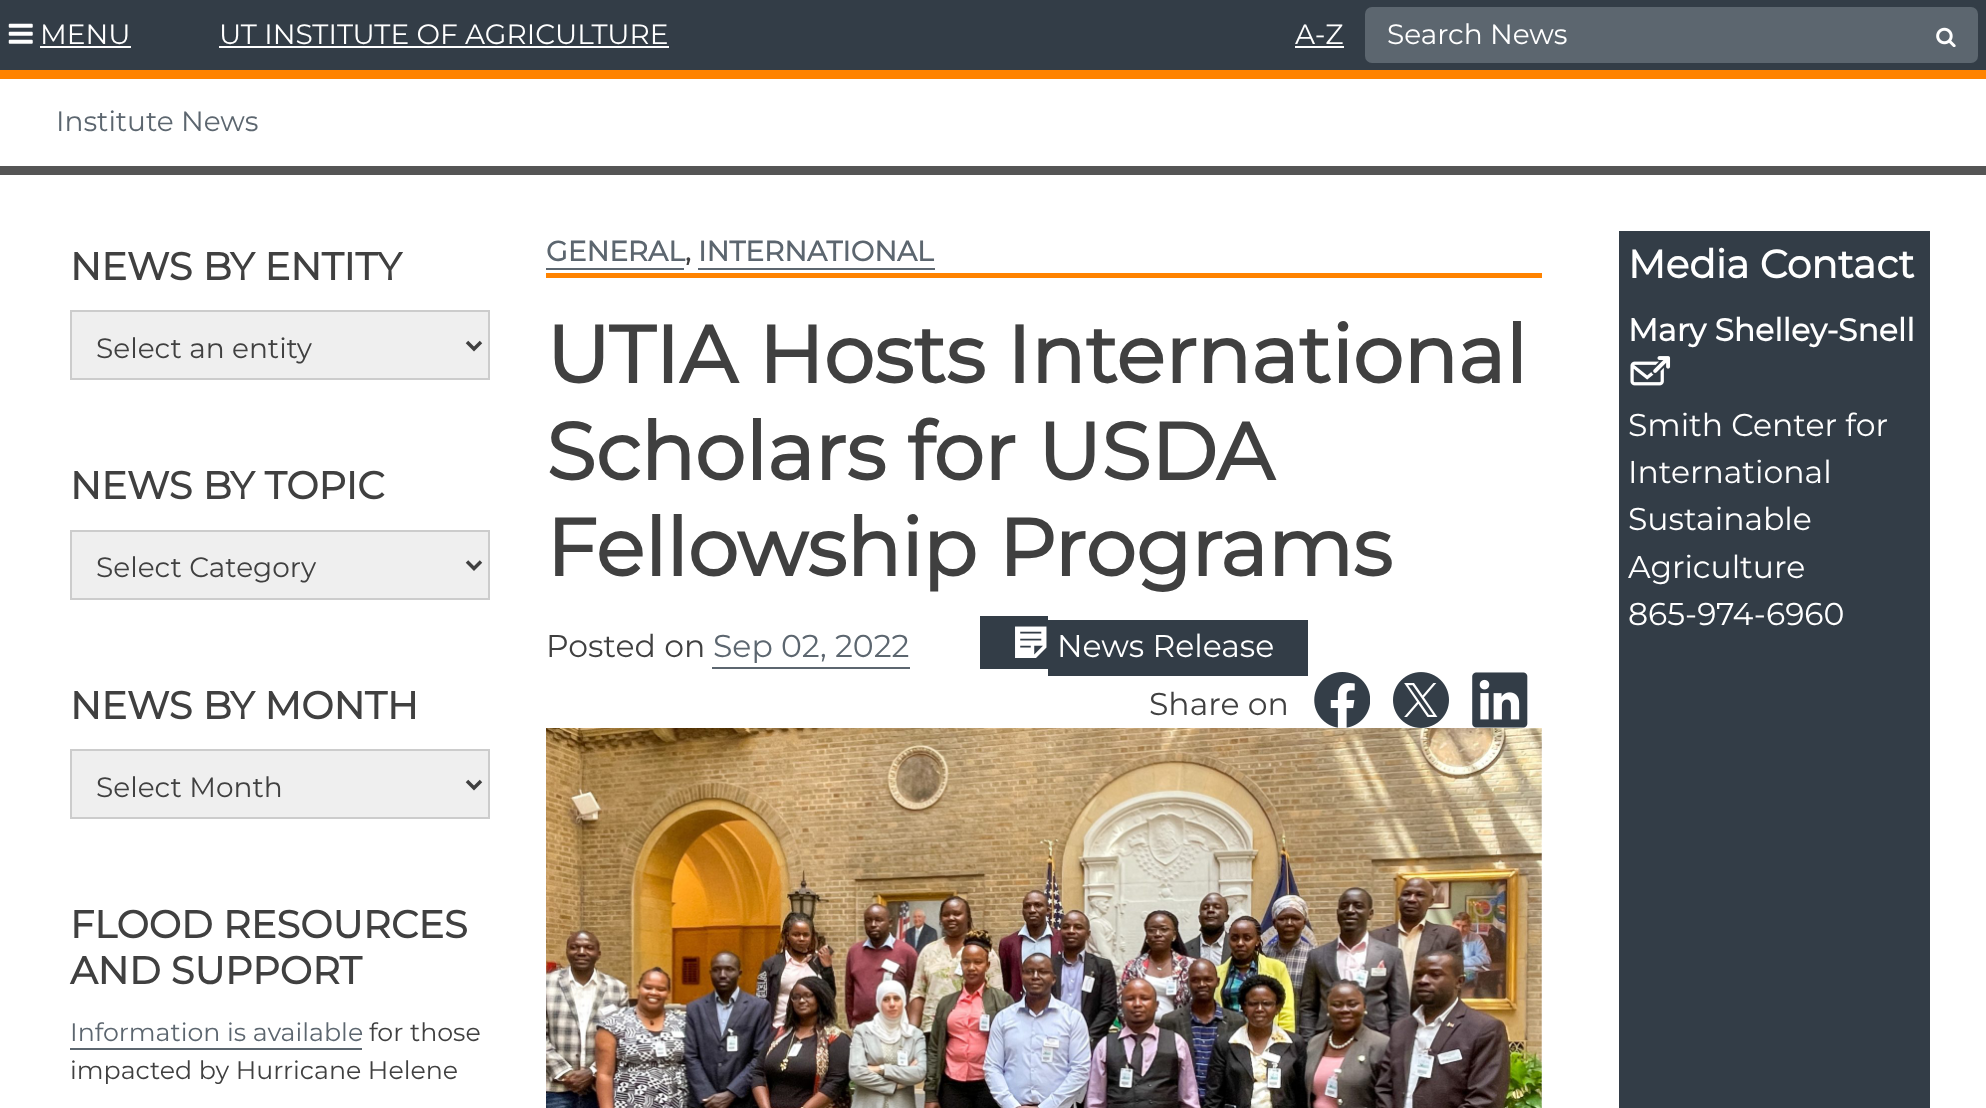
(async () => {
  const canvas = document.querySelector("canvas");
  canvas.width = 1986;
  canvas.height = 1108;
  const ctx = canvas.getContext("2d");
  ctx.miterLimit = 4;
  ctx.fontKerning = "normal";
  async function loadImage(src) {
    const img = new Image();
    img.src = src;
    await img.decode();
    return img;
  }
  let path;

  ctx.fillStyle = "#ffffff";
  ctx.fillRect(0, 0, 1986, 1108);
  ctx.fillStyle = "#333d47";
  ctx.fillRect(0, 0, 1986, 70);
  ctx.fillStyle = "#ff8300";
  ctx.fillRect(0, 70, 1986, 9);
  ctx.drawImage(await loadImage("img/1.png"), 8, 23, 25, 21);
  for (const [x, y, w, h, color] of [
    [40, 46, 91, 2, "#ffffff"],
    [219, 46, 450, 2, "#ffffff"],
    [1295, 46, 49, 2, "#ffffff"],
  ]) {
    ctx.fillStyle = color;
    ctx.fillRect(x, y, w, h);
  }
  ctx.fillStyle = "#5c666f";
  ctx.beginPath();
  ctx.roundRect(1365, 7, 613, 56, 7);
  ctx.fill();
  ctx.drawImage(await loadImage("img/2.png"), 1936, 27, 20, 20);
  ctx.fillStyle = "#555555";
  ctx.fillRect(0, 166, 1986, 9);
  ctx.fillStyle = "#efefef";
  ctx.beginPath();
  ctx.rect(71, 311, 418, 68);
  ctx.fill();
  ctx.strokeStyle = "#cccccc";
  ctx.lineWidth = 2;
  ctx.stroke();
  path = new Path2D("M467 342L474 349L481 342");
  ctx.strokeStyle = "#404040";
  ctx.lineWidth = 3.5;
  ctx.stroke(path);
  ctx.beginPath();
  ctx.rect(71, 531, 418, 68);
  ctx.fill();
  ctx.strokeStyle = "#cccccc";
  ctx.lineWidth = 2;
  ctx.stroke();
  path = new Path2D("M467 561.5L474 568.5L481 561.5");
  ctx.strokeStyle = "#404040";
  ctx.lineWidth = 3.5;
  ctx.stroke(path);
  ctx.beginPath();
  ctx.rect(71, 750, 418, 68);
  ctx.fill();
  ctx.strokeStyle = "#cccccc";
  ctx.lineWidth = 2;
  ctx.stroke();
  path = new Path2D("M467 781L474 788L481 781");
  ctx.strokeStyle = "#404040";
  ctx.lineWidth = 3.5;
  ctx.stroke(path);
  for (const [x, y, w, h, color] of [
    [70, 1048, 292, 2, "#5c666f"],
    [546, 273, 996, 5, "#ff8300"],
    [546, 268, 138, 2, "#5c666f"],
    [698, 268, 237, 2, "#5c666f"],
    [712, 667, 198, 2, "#5c666f"],
    [980, 616, 68, 53, "#333d47"],
    [1048, 620, 260, 56, "#333d47"],
  ]) {
    ctx.fillStyle = color;
    ctx.fillRect(x, y, w, h);
  }
  ctx.drawImage(await loadImage("img/3.png"), 1015, 626, 32, 32);
  ctx.drawImage(await loadImage("img/4.png"), 1314, 672, 56, 56);
  ctx.drawImage(await loadImage("img/5.png"), 1393, 672, 56, 56);
  ctx.drawImage(await loadImage("img/6.png"), 1472, 672, 56, 56);
  ctx.drawImage(await loadImage("img/7.png"), 546, 728, 996, 380);
  ctx.fillRect(1619, 231, 311, 877);
  ctx.drawImage(await loadImage("img/8.png"), 1630, 356, 41, 30);
  ctx.font = "100 28px Montserrat";
  ctx.fillStyle = "#ffffff";
  for (const [text, x, y] of [
    ["MENU", 40, 44],
    ["UT INSTITUTE OF AGRICULTURE", 219, 44],
    ["A-Z", 1295, 44],
    ["Search News", 1387, 44],
  ]) {
    ctx.fillText(text, x, y);
  }
  ctx.fillStyle = "#5c666f";
  ctx.fillText("Institute News", 56, 131);
  ctx.font = "bold 38.5px Montserrat";
  ctx.fillStyle = "#404040";
  ctx.fillText("NEWS BY ENTITY", 70, 280);
  ctx.font = "100 28px Montserrat";
  ctx.fillText("Select an entity", 96, 358);
  ctx.font = "bold 38.5px Montserrat";
  ctx.fillText("NEWS BY TOPIC", 70, 499);
  ctx.font = "100 28px Montserrat";
  ctx.fillText("Select Category", 96, 577);
  ctx.font = "bold 38.5px Montserrat";
  ctx.fillText("NEWS BY MONTH", 70, 719);
  ctx.font = "100 28px Montserrat";
  ctx.fillText("Select Month", 96, 797);
  ctx.font = "bold 38.5px Montserrat";
  ctx.fillText("FLOOD RESOURCES", 70, 938);
  ctx.fillText("AND SUPPORT", 70, 984);
  ctx.font = "100 25.25px Montserrat";
  ctx.fillStyle = "#5c666f";
  ctx.fillText("Information is available", 70, 1041);
  ctx.fillStyle = "#404040";
  ctx.fillText("for those", 369, 1041);
  ctx.fillText("impacted by Hurricane Helene", 70, 1079);
  ctx.font = "bold 28px Montserrat";
  ctx.fillStyle = "#5c666f";
  ctx.fillText("GENERAL", 546, 261);
  ctx.fillStyle = "#404040";
  ctx.fillText(",", 685, 261);
  ctx.fillStyle = "#5c666f";
  ctx.fillText("INTERNATIONAL", 698, 261);
  ctx.font = "bold 80.5px Montserrat";
  ctx.fillStyle = "#404040";
  for (const [text, x, y] of [
    ["UTIA Hosts International", 546, 383],
    ["Scholars for USDA", 546, 480],
    ["Fellowship Programs", 546, 576],
  ]) {
    ctx.fillText(text, x, y);
  }
  ctx.font = "100 31.5px Montserrat";
  ctx.fillText("Posted on", 546, 657);
  ctx.fillStyle = "#5c666f";
  ctx.fillText("Sep 02, 2022", 713, 657);
  ctx.fillStyle = "#ffffff";
  ctx.fillText("News Release", 1057, 657);
  ctx.fillStyle = "#404040";
  ctx.fillText("Share on", 1149, 715);
  ctx.font = "bold 39.25px Montserrat";
  ctx.fillStyle = "#ffffff";
  ctx.fillText("Media Contact", 1628, 278);
  ctx.font = "bold 31.5px Montserrat";
  ctx.fillText("Mary Shelley-Snell", 1628, 341);
  ctx.font = "100 31.5px Montserrat";
  for (const [text, x, y] of [
    ["Smith Center for", 1628, 436],
    ["International", 1628, 483],
    ["Sustainable", 1628, 530],
    ["Agriculture", 1628, 578],
    ["865-974-6960", 1628, 625],
  ]) {
    ctx.fillText(text, x, y);
  }
})();
